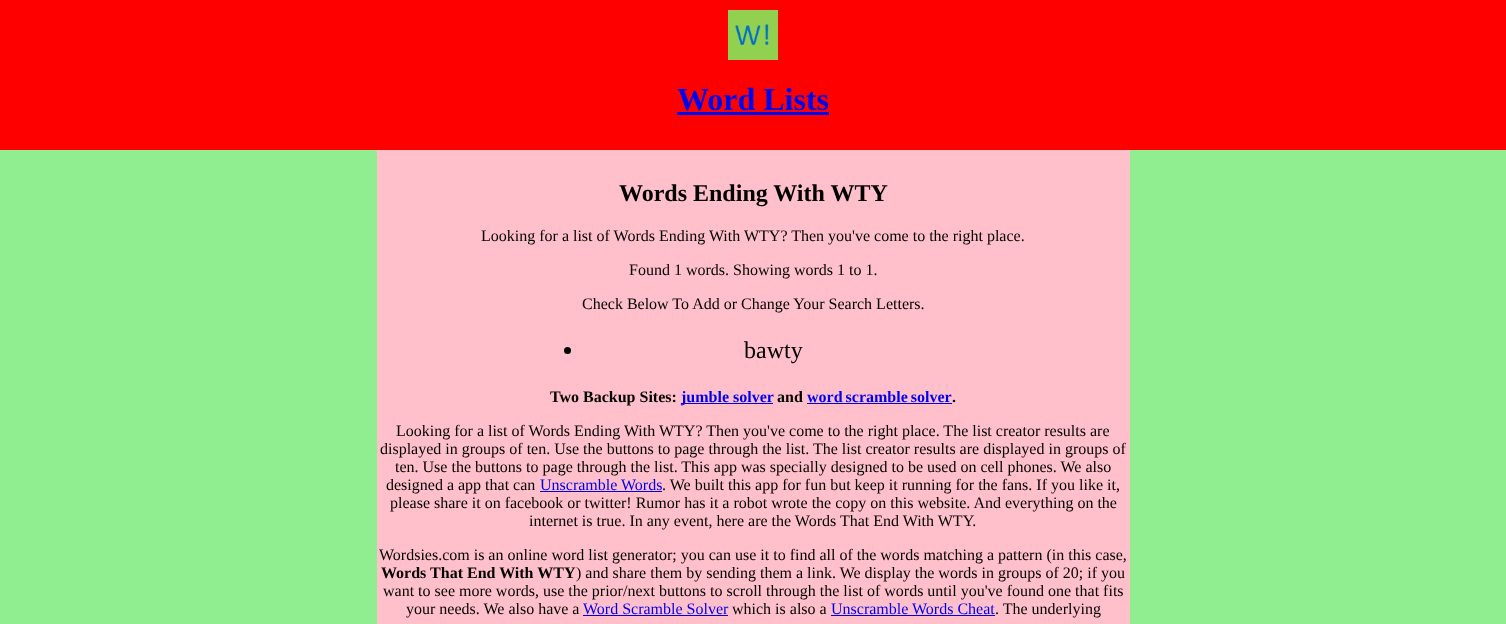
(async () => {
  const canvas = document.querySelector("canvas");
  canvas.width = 1506;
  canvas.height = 624;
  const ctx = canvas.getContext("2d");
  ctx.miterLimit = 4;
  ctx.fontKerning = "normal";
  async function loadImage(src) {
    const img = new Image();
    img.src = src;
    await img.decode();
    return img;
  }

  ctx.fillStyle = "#90ee90";
  ctx.fillRect(0, 0, 1506, 624);
  ctx.fillStyle = "#ff0000";
  ctx.fillRect(0, 0, 1506, 150);
  ctx.drawImage(await loadImage("img/1.png"), 728, 10, 50, 50);
  ctx.fillStyle = "#0000ee";
  ctx.fillRect(677, 112, 152, 3);
  ctx.fillStyle = "#ffc0cb";
  ctx.fillRect(377, 150, 753, 474);
  ctx.fillStyle = "#000000";
  ctx.beginPath();
  ctx.arc(567.5, 350.5, 3.5, 0, Math.PI * 2);
  ctx.fill();
  for (const [x, y, w, h, color] of [
    [681, 403, 92, 1, "#0000ee"],
    [807, 403, 145, 1, "#0000ee"],
    [540, 491, 122, 1, "#0000ee"],
    [583, 615, 145, 1, "#0000ee"],
    [831, 615, 164, 1, "#0000ee"],
  ]) {
    ctx.fillStyle = color;
    ctx.fillRect(x, y, w, h);
  }
  ctx.font = "bold 32px Liberation Serif";
  ctx.fillText("Word Lists", 677, 110);
  ctx.font = "bold 24px Liberation Serif";
  ctx.fillStyle = "#000000";
  ctx.fillText("Words Ending With WTY", 619, 201);
  ctx.font = "16px Liberation Serif";
  for (const [text, x, y] of [
    ["Looking for a list of Words Ending With WTY? Then you've come to the right place.", 481, 241],
    ["Found 1 words. Showing words 1 to 1.", 629, 275],
    ["Check Below To Add or Change Your Search Letters.", 582, 309],
  ]) {
    ctx.fillText(text, x, y);
  }
  ctx.font = "24px Liberation Serif";
  ctx.fillText("bawty", 744, 358);
  ctx.font = "bold 16px Liberation Serif";
  ctx.fillText("Two Backup Sites:", 550, 402);
  ctx.fillStyle = "#0000ee";
  ctx.fillText("jumble solver", 681, 402);
  ctx.fillStyle = "#000000";
  ctx.fillText("and", 777, 402);
  ctx.wordSpacing = "-1px";
  ctx.fillStyle = "#0000ee";
  ctx.fillText("word scramble solver", 807, 402);
  ctx.wordSpacing = "0px";
  ctx.fillStyle = "#000000";
  ctx.fillText(".", 952, 402);
  ctx.font = "16px Liberation Serif";
  for (const [text, x, y] of [
    ["Looking for a list of Words Ending With WTY? Then you've come to the right place. The list creator results are", 396, 436],
    ["displayed in groups of ten. Use the buttons to page through the list. The list creator results are displayed in groups of", 380, 454],
    ["ten. Use the buttons to page through the list. This app was specially designed to be used on cell phones. We also", 395, 472],
    ["designed a app that can", 386, 490],
  ]) {
    ctx.fillText(text, x, y);
  }
  ctx.fillStyle = "#0000ee";
  ctx.fillText("Unscramble Words", 540, 490);
  ctx.fillStyle = "#000000";
  for (const [text, x, y] of [
    [". We built this app for fun but keep it running for the fans. If you like it,", 662, 490],
    ["please share it on facebook or twitter! Rumor has it a robot wrote the copy on this website. And everything on the", 390, 508],
    ["internet is true. In any event, here are the Words That End With WTY.", 529, 526],
    ["Wordsies.com is an online word list generator; you can use it to find all of the words matching a pattern (in this case,", 379, 560],
  ]) {
    ctx.fillText(text, x, y);
  }
  ctx.font = "bold 16px Liberation Serif";
  ctx.fillText("Words That End With WTY", 381, 578);
  ctx.font = "16px Liberation Serif";
  for (const [text, x, y] of [
    [") and share them by sending them a link. We display the words in groups of 20; if you", 576, 578],
    ["want to see more words, use the prior/next buttons to scroll through the list of words until you've found one that fits", 383, 596],
    ["your needs. We also have a", 406, 614],
  ]) {
    ctx.fillText(text, x, y);
  }
  ctx.fillStyle = "#0000ee";
  ctx.fillText("Word Scramble Solver", 583, 614);
  ctx.fillStyle = "#000000";
  ctx.fillText("which is also a", 732, 614);
  ctx.fillStyle = "#0000ee";
  ctx.fillText("Unscramble Words Cheat", 831, 614);
  ctx.fillStyle = "#000000";
  ctx.fillText(". The underlying", 995, 614);
})();
